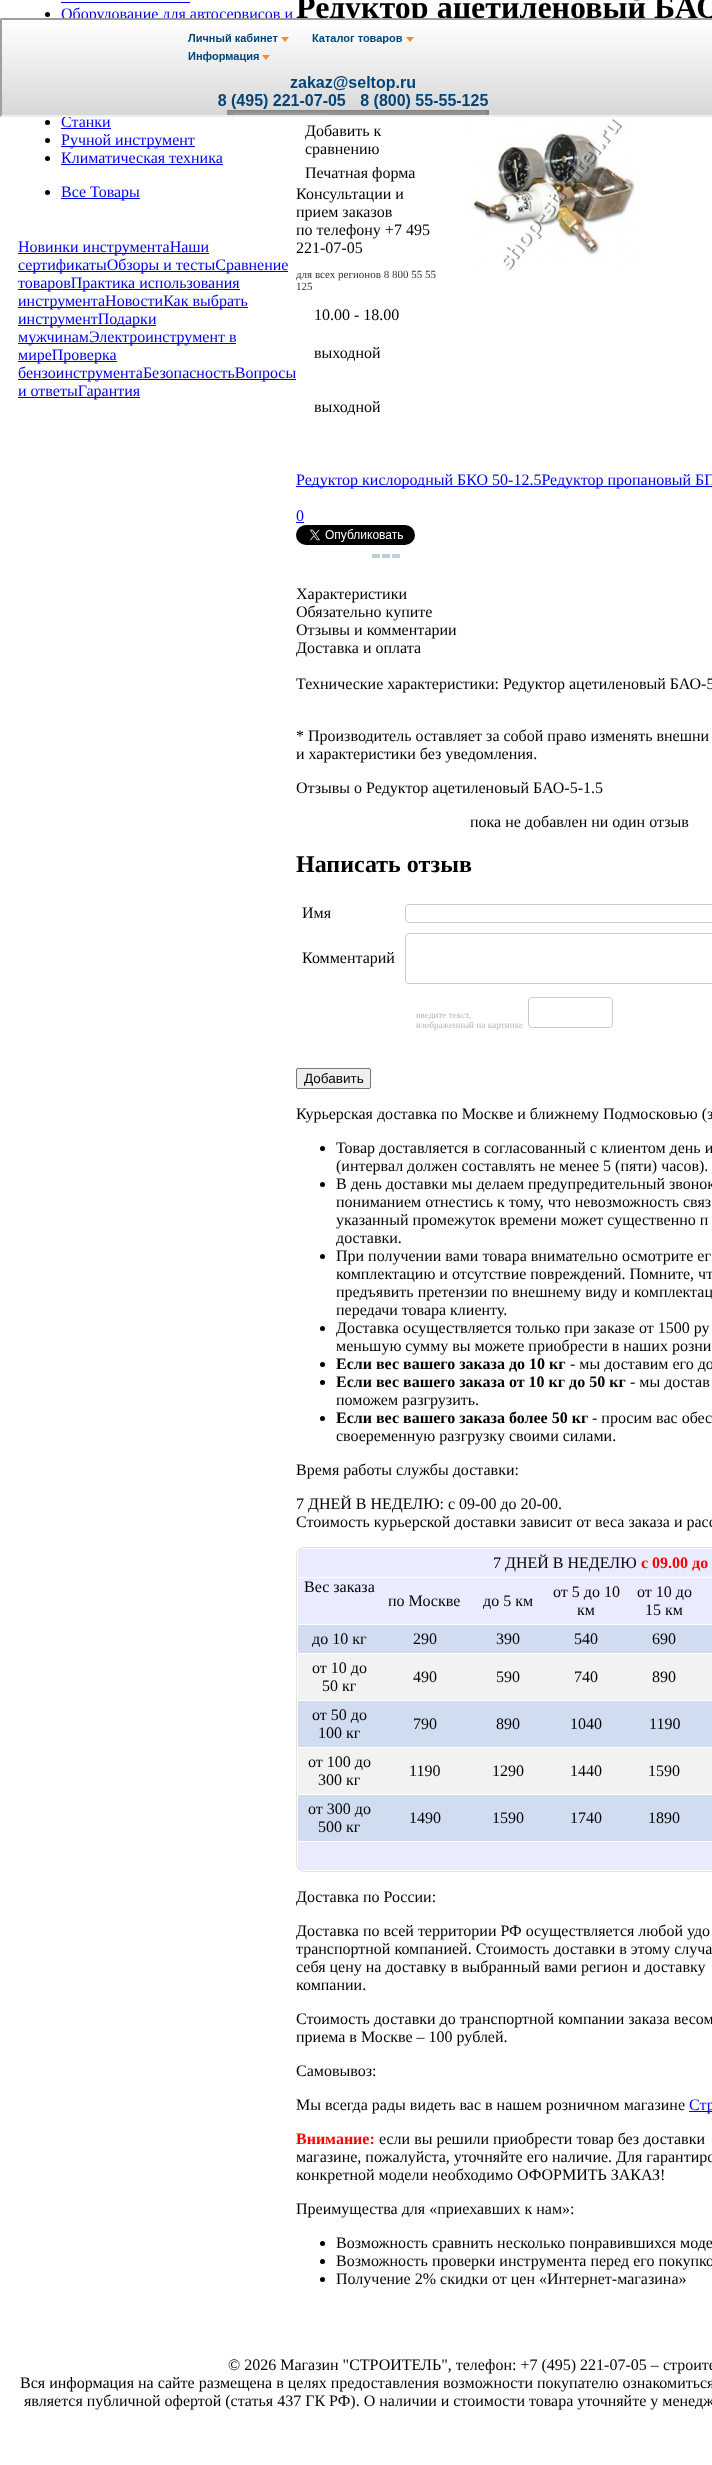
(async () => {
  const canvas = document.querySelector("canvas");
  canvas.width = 712;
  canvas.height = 2465;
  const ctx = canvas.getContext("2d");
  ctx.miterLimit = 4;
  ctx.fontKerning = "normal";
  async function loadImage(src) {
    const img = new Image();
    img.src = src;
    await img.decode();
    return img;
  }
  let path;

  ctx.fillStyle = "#ffffff";
  ctx.fillRect(0, 0, 712, 2465);
  ctx.fillStyle = "#0000ee";
  ctx.fillRect(61, 2, 129, 1);
  ctx.fillStyle = "#000000";
  ctx.beginPath();
  ctx.arc(47.5, 14.5, 2.5, 0, Math.PI * 2);
  ctx.fill();
  ctx.beginPath();
  ctx.arc(47.5, 122.5, 2.5, 0, Math.PI * 2);
  ctx.fill();
  ctx.fillStyle = "#0000ee";
  ctx.fillRect(61, 128, 50, 1);
  ctx.fillStyle = "#000000";
  ctx.beginPath();
  ctx.arc(47.5, 140.5, 2.5, 0, Math.PI * 2);
  ctx.fill();
  ctx.fillStyle = "#0000ee";
  ctx.fillRect(61, 146, 134, 1);
  ctx.fillStyle = "#000000";
  ctx.beginPath();
  ctx.arc(47.5, 158.5, 2.5, 0, Math.PI * 2);
  ctx.fill();
  ctx.fillStyle = "#0000ee";
  ctx.fillRect(61, 164, 162, 1);
  ctx.fillStyle = "#000000";
  ctx.beginPath();
  ctx.arc(47.5, 192.5, 2.5, 0, Math.PI * 2);
  ctx.fill();
  for (const [x, y, w, h, color] of [
    [61, 198, 79, 1, "#0000ee"],
    [18, 253, 191, 1, "#0000ee"],
    [18, 271, 270, 1, "#0000ee"],
    [18, 289, 222, 1, "#0000ee"],
    [18, 307, 230, 1, "#0000ee"],
    [18, 325, 138, 1, "#0000ee"],
    [18, 343, 218, 1, "#0000ee"],
    [18, 361, 99, 1, "#0000ee"],
    [18, 379, 278, 1, "#0000ee"],
    [18, 397, 122, 1, "#0000ee"],
  ]) {
    ctx.fillStyle = color;
    ctx.fillRect(x, y, w, h);
  }
  ctx.drawImage(await loadImage("img/1.png"), 468, 119, 167, 153);
  ctx.fillRect(296, 486, 416, 1);
  ctx.fillRect(296, 522, 8, 1);
  ctx.drawImage(await loadImage("img/2.png"), 296, 525, 119, 20);
  ctx.drawImage(await loadImage("img/3.png"), 372, 554, 28, 4);
  ctx.beginPath();
  ctx.roundRect(405.5, 904.5, 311, 18, 3.5);
  ctx.strokeStyle = "#cccccc";
  ctx.stroke();
  ctx.beginPath();
  ctx.roundRect(405.5, 933.5, 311, 50, 3.5);
  ctx.stroke();
  ctx.beginPath();
  ctx.roundRect(528.5, 997.5, 84, 30, 3.5);
  ctx.stroke();
  ctx.fillStyle = "#efefef";
  ctx.beginPath();
  ctx.roundRect(296.5, 1068.5, 74, 20, 1.5);
  ctx.fill();
  ctx.strokeStyle = "#767676";
  ctx.stroke();
  ctx.fillStyle = "#000000";
  ctx.beginPath();
  ctx.arc(322.5, 1148.5, 2.5, 0, Math.PI * 2);
  ctx.fill();
  ctx.beginPath();
  ctx.arc(322.5, 1184.5, 2.5, 0, Math.PI * 2);
  ctx.fill();
  ctx.beginPath();
  ctx.arc(322.5, 1256.5, 2.5, 0, Math.PI * 2);
  ctx.fill();
  ctx.beginPath();
  ctx.arc(322.5, 1328.5, 2.5, 0, Math.PI * 2);
  ctx.fill();
  ctx.beginPath();
  ctx.arc(322.5, 1364.5, 2.5, 0, Math.PI * 2);
  ctx.fill();
  ctx.beginPath();
  ctx.arc(322.5, 1382.5, 2.5, 0, Math.PI * 2);
  ctx.fill();
  ctx.beginPath();
  ctx.arc(322.5, 1418.5, 2.5, 0, Math.PI * 2);
  ctx.fill();
  ctx.beginPath();
  ctx.roundRect(296.5, 1547.5, 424, 324, 7.5);
  ctx.strokeStyle = "#e3e3e0";
  ctx.stroke();
  for (const [x, y, w, h, color] of [
    [298, 1549, 414, 28, "#ebebff"],
    [298, 1578, 414, 46, "#ebebff"],
    [298, 1625, 414, 28, "#d0dcef"],
    [298, 1654, 414, 46, "#f2f2f2"],
    [298, 1701, 414, 46, "#d0dcef"],
    [298, 1748, 414, 46, "#f2f2f2"],
    [298, 1795, 414, 46, "#d0dcef"],
    [298, 1842, 414, 28, "#ebebff"],
    [689, 2111, 23, 1, "#0000ee"],
  ]) {
    ctx.fillStyle = color;
    ctx.fillRect(x, y, w, h);
  }
  ctx.fillStyle = "#000000";
  ctx.beginPath();
  ctx.arc(322.5, 2243.5, 2.5, 0, Math.PI * 2);
  ctx.fill();
  ctx.beginPath();
  ctx.arc(322.5, 2261.5, 2.5, 0, Math.PI * 2);
  ctx.fill();
  ctx.beginPath();
  ctx.arc(322.5, 2279.5, 2.5, 0, Math.PI * 2);
  ctx.fill();
  ctx.font = "16px Liberation Serif";
  ctx.fillStyle = "#0000ee";
  for (const [text, x, y] of [
    ["Оборудование для автосервисов и", 61, 19],
    ["Станки", 61, 127],
    ["Ручной инструмент", 61, 145],
    ["Климатическая техника", 61, 163],
    ["Все Товары", 61, 197],
    ["Новинки инструментаНаши", 18, 252],
    ["сертификатыОбзоры и тестыСравнение", 18, 270],
    ["товаровПрактика использования", 18, 288],
    ["инструментаНовостиКак выбрать", 18, 306],
    ["инструментПодарки", 18, 324],
    ["мужчинамЭлектроинструмент в", 18, 342],
    ["миреПроверка", 18, 360],
    ["бензоинструментаБезопасностьВопросы", 18, 378],
    ["и ответыГарантия", 18, 396],
  ]) {
    ctx.fillText(text, x, y);
  }
  ctx.font = "bold 32px Liberation Serif";
  ctx.fillStyle = "#000000";
  ctx.fillText("Редуктор ацетиленовый БАО", 296, 18);
  ctx.font = "16px Liberation Serif";
  for (const [text, x, y] of [
    ["Добавить к", 305, 136],
    ["сравнению", 305, 154],
    ["Печатная форма", 305, 178],
    ["Консультации и", 296, 199],
    ["прием заказов", 296, 217],
    ["по телефону +7 495", 296, 235],
    ["221-07-05", 296, 253],
  ]) {
    ctx.fillText(text, x, y);
  }
  ctx.font = "11px Liberation Serif";
  ctx.fillStyle = "#333333";
  ctx.fillText("для всех регионов 8 800 55 55", 296, 278);
  ctx.fillText("125", 296, 290);
  ctx.font = "16px Liberation Serif";
  ctx.fillStyle = "#000000";
  for (const [text, x, y] of [
    ["10.00 - 18.00", 314, 320],
    ["выходной", 314, 358],
    ["выходной", 314, 412],
  ]) {
    ctx.fillText(text, x, y);
  }
  ctx.fillStyle = "#0000ee";
  ctx.fillText("Редуктор кислородный БКО 50-12.5Редуктор пропановый БП", 296, 485);
  ctx.fillText("0", 296, 521);
  ctx.fillStyle = "#000000";
  for (const [text, x, y] of [
    ["Характеристики", 296, 599],
    ["Обязательно купите", 296, 617],
    ["Отзывы и комментарии", 296, 635],
    ["Доставка и оплата", 296, 653],
    ["Технические характеристики: Редуктор ацетиленовый БАО-5", 296, 689],
    ["* Производитель оставляет за собой право изменять внешни", 296, 741],
    ["и характеристики без уведомления.", 296, 759],
    ["Отзывы о Редуктор ацетиленовый БАО-5-1.5", 296, 793],
    ["пока не добавлен ни один отзыв", 470, 827],
  ]) {
    ctx.fillText(text, x, y);
  }
  ctx.font = "bold 24px Liberation Serif";
  ctx.fillText("Написать отзыв", 296, 872);
  ctx.font = "16px Liberation Serif";
  ctx.fillText("Имя", 302, 918);
  ctx.fillText("Комментарий", 302, 963);
  ctx.font = "9.25px Liberation Serif";
  ctx.fillStyle = "#b2b4b8";
  ctx.fillText("введите текст,", 416, 1018);
  ctx.fillText("изображенный на картинке", 416, 1028);
  ctx.font = "13.5px Liberation Sans";
  ctx.fillStyle = "#000000";
  ctx.fillText("Добавить", 304, 1083);
  ctx.font = "16px Liberation Serif";
  for (const [text, x, y] of [
    ["Курьерская доставка по Москве и ближнему Подмосковью (з", 296, 1119],
    ["Товар доставляется в согласованный с клиентом день и", 336, 1153],
    ["(интервал должен составлять не менее 5 (пяти) часов).", 336, 1171],
    ["В день доставки мы делаем предупредительный звонок", 336, 1189],
    ["пониманием отнестись к тому, что невозможность связ", 336, 1207],
    ["указанный промежуток времени может существенно п", 336, 1225],
    ["доставки.", 336, 1243],
    ["При получении вами товара внимательно осмотрите ег", 336, 1261],
    ["комплектацию и отсутствие повреждений. Помните, чт", 336, 1279],
    ["предъявить претензии по внешнему виду и комплектац", 336, 1297],
    ["передачи товара клиенту.", 336, 1315],
    ["Доставка осуществляется только при заказе от 1500 ру", 336, 1333],
    ["меньшую сумму вы можете приобрести в наших розни", 336, 1351],
  ]) {
    ctx.fillText(text, x, y);
  }
  ctx.font = "bold 16px Liberation Serif";
  ctx.fillText("Если вес вашего заказа до 10 кг", 336, 1369);
  ctx.font = "16px Liberation Serif";
  ctx.fillText("- мы доставим его до", 570, 1369);
  ctx.font = "bold 16px Liberation Serif";
  ctx.fillText("Если вес вашего заказа от 10 кг до 50 кг", 336, 1387);
  ctx.font = "16px Liberation Serif";
  ctx.fillText("- мы достав", 630, 1387);
  ctx.fillText("поможем разгрузить.", 336, 1405);
  ctx.font = "bold 16px Liberation Serif";
  ctx.fillText("Если вес вашего заказа более 50 кг", 336, 1423);
  ctx.font = "16px Liberation Serif";
  for (const [text, x, y] of [
    ["- просим вас обес", 592, 1423],
    ["своеременную разгрузку своими силами.", 336, 1441],
    ["Время работы службы доставки:", 296, 1475],
    ["7 ДНЕЙ В НЕДЕЛЮ: с 09-00 до 20-00.", 296, 1509],
    ["Стоимость курьерской доставки зависит от веса заказа и расс", 296, 1527],
    ["7 ДНЕЙ В НЕДЕЛЮ", 493, 1568],
  ]) {
    ctx.fillText(text, x, y);
  }
  ctx.font = "bold 16px Liberation Serif";
  ctx.fillStyle = "#ff0000";
  ctx.fillText("с 09.00 до", 641, 1568);
  ctx.font = "16px Liberation Serif";
  ctx.fillStyle = "#000000";
  for (const [text, x, y] of [
    ["Вес заказа", 304, 1592],
    ["по Москве", 388, 1606],
    ["до 5 км", 483, 1606],
    ["от 5 до 10", 553, 1597],
    ["км", 577, 1615],
    ["от 10 до", 637, 1597],
    ["15 км", 645, 1615],
    ["до 10 кг", 312, 1644],
    ["290", 413, 1644],
    ["390", 496, 1644],
    ["540", 574, 1644],
    ["690", 652, 1644],
    ["от 10 до", 312, 1673],
    ["50 кг", 322, 1691],
    ["490", 413, 1682],
    ["590", 496, 1682],
    ["740", 574, 1682],
    ["890", 652, 1682],
    ["от 50 до", 312, 1720],
    ["100 кг", 318, 1738],
    ["790", 413, 1729],
    ["890", 496, 1729],
    ["1040", 570, 1729],
    ["1190", 649, 1729],
    ["от 100 до", 308, 1767],
    ["300 кг", 318, 1785],
    ["1190", 409, 1776],
    ["1290", 492, 1776],
    ["1440", 570, 1776],
    ["1590", 648, 1776],
    ["от 300 до", 308, 1814],
    ["500 кг", 318, 1832],
    ["1490", 409, 1823],
    ["1590", 492, 1823],
    ["1740", 570, 1823],
    ["1890", 648, 1823],
    ["Доставка по России:", 296, 1902],
    ["Доставка по всей территории РФ осуществляется любой удо", 296, 1936],
    ["транспортной компанией. Стоимость доставки в этому случа", 296, 1954],
    ["себя цену на доставку в выбранный вами регион и доставку", 296, 1972],
    ["компании.", 296, 1990],
    ["Стоимость доставки до транспортной компании заказа весом", 296, 2024],
    ["приема в Москве – 100 рублей.", 296, 2042],
    ["Самовывоз:", 296, 2076],
    ["Мы всегда рады видеть вас в нашем розничном магазине", 296, 2110],
  ]) {
    ctx.fillText(text, x, y);
  }
  ctx.fillStyle = "#0000ee";
  ctx.fillText("Стр", 689, 2110);
  ctx.font = "bold 16px Liberation Serif";
  ctx.fillStyle = "#ff0000";
  ctx.fillText("Внимание:", 296, 2144);
  ctx.font = "16px Liberation Serif";
  ctx.fillStyle = "#000000";
  for (const [text, x, y] of [
    ["если вы решили приобрести товар без доставки", 379, 2144],
    ["магазине, пожалуйста, уточняйте его наличие. Для гарантиро", 296, 2162],
    ["конкретной модели необходимо ОФОРМИТЬ ЗАКАЗ!", 296, 2180],
    ["Преимущества для «приехавших к нам»:", 296, 2214],
    ["Возможность сравнить несколько понравившихся моде", 336, 2248],
    ["Возможность проверки инструмента перед его покупко", 336, 2266],
    ["Получение 2% скидки от цен «Интернет-магазина»", 336, 2284],
    ["© 2026 Магазин \"СТРОИТЕЛЬ\", телефон: +7 (495) 221-07-05 –", 228, 2370],
  ]) {
    ctx.fillText(text, x, y);
  }
  ctx.wordSpacing = "-1px";
  ctx.fillText("строите", 663, 2370);
  ctx.wordSpacing = "0px";
  ctx.fillText("Вся информация на сайте размещена в целях предоставления возможности покупателю ознакомиться", 20, 2388);
  ctx.fillText("является публичной офертой (статья 437 ГК РФ). О наличии и стоимости товара уточняйте у менедж", 24, 2406);
  ctx.fillStyle = "#9f9f9f";
  path = new Path2D("M0 18H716L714 20H2Z");
  ctx.fill(path);
  ctx.fillStyle = "#eeeeee";
  path = new Path2D("M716 117H0L2 115H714Z");
  ctx.fill(path);
  ctx.fillStyle = "#9f9f9f";
  path = new Path2D("M0 117V18L2 20V115Z");
  ctx.fill(path);
  ctx.drawImage(await loadImage("img/4.png"), 2, 20, 710, 95);
})();
